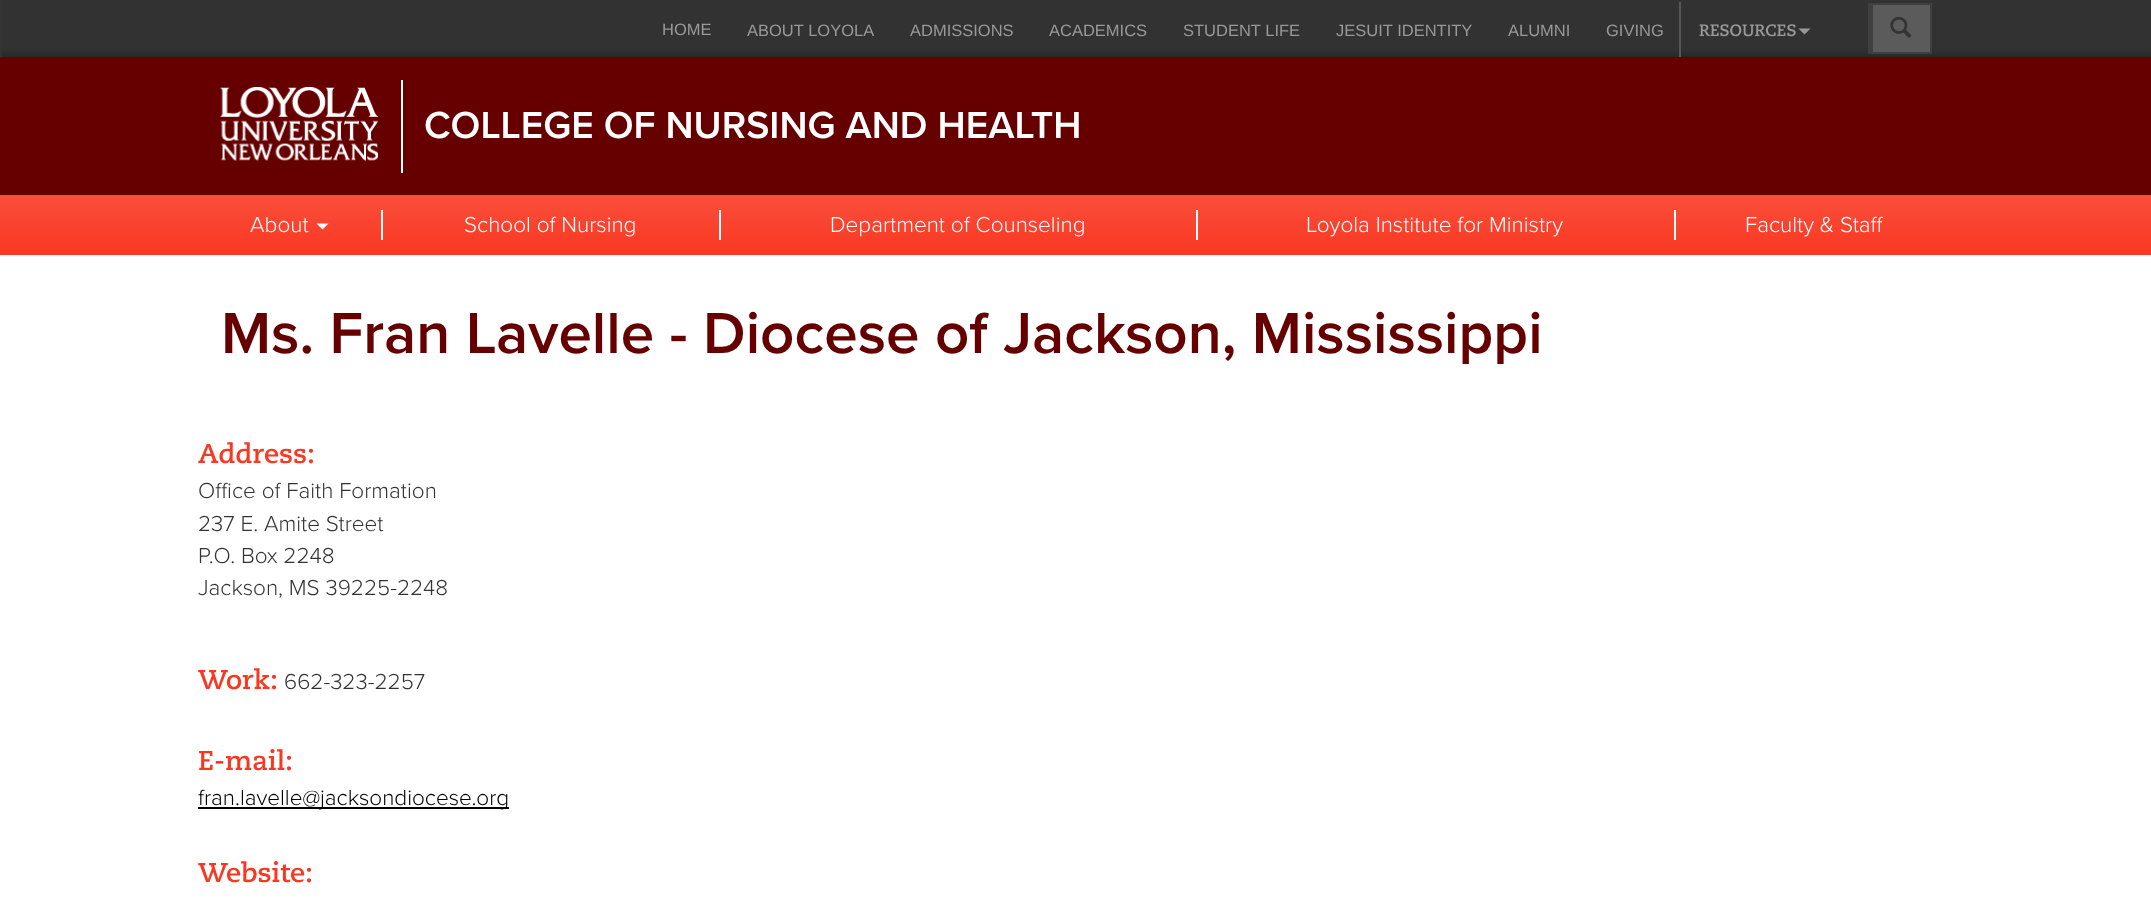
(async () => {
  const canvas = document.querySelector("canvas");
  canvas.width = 2151;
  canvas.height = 903;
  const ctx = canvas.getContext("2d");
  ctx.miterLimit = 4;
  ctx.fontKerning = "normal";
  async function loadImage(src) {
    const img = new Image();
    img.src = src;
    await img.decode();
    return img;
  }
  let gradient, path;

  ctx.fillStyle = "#ffffff";
  ctx.fillRect(0, 0, 2151, 903);
  gradient = ctx.createLinearGradient(1076, 0, 1076, 57);
  gradient.addColorStop(0.85, "#323232");
  gradient.addColorStop(1, "#282828");
  ctx.fillStyle = gradient;
  ctx.fillRect(2, 0, 2149, 57);
  gradient = ctx.createLinearGradient(1076, 0, 1076, 57);
  gradient.addColorStop(0.85, "#5b5b5b");
  gradient.addColorStop(1, "#585858");
  ctx.fillStyle = gradient;
  ctx.fillRect(1873, 5, 57, 47);
  ctx.fillStyle = "#333333";
  ctx.fillRect(0, 0, 2, 57);
  ctx.fillStyle = "#565656";
  ctx.fillRect(1679, 2, 2, 55);
  ctx.fillStyle = "#999999";
  path = new Path2D("M1798.5 28.5H1810.5L1804.5 34.5Z");
  ctx.fill(path);
  ctx.fillStyle = "#3f3f3f";
  ctx.fillRect(1868, 3, 3, 51);
  ctx.strokeStyle = "#3f3f3f";
  ctx.lineWidth = 2;
  ctx.strokeRect(1872, 4, 59, 49);
  ctx.drawImage(await loadImage("img/1.png"), 1890, 17, 22, 21);
  ctx.fillStyle = "#660000";
  ctx.fillRect(0, 57, 2151, 138);
  ctx.drawImage(await loadImage("img/2.png"), 220, 87, 158, 74);
  ctx.fillStyle = "#ffffff";
  ctx.fillRect(401, 80, 2, 93);
  gradient = ctx.createLinearGradient(1076, 195, 1076, 255);
  gradient.addColorStop(0, "#fa4e3b");
  gradient.addColorStop(1, "#f93822");
  ctx.fillStyle = gradient;
  ctx.fillRect(0, 195, 2151, 60);
  ctx.fillStyle = "#ffffff";
  ctx.fillRect(381, 210, 2, 30);
  path = new Path2D("M316.5 223.5H328.5L322.5 229.5Z");
  ctx.fill(path);
  for (const [x, y, w, h, color] of [
    [719, 210, 2, 30, "#ffffff"],
    [1196, 210, 2, 30, "#ffffff"],
    [1674, 210, 2, 30, "#ffffff"],
    [198, 807, 311, 2, "#000000"],
  ]) {
    ctx.fillStyle = color;
    ctx.fillRect(x, y, w, h);
  }
  ctx.font = "16.5px Liberation Sans";
  ctx.fillStyle = "#999999";
  for (const [text, x, y] of [
    ["HOME", 662, 35],
    ["ABOUT LOYOLA", 747, 36],
    ["ADMISSIONS", 910, 36],
    ["ACADEMICS", 1049, 36],
    ["STUDENT LIFE", 1183, 36],
    ["JESUIT IDENTITY", 1336, 36],
    ["ALUMNI", 1508, 36],
    ["GIVING", 1606, 36],
  ]) {
    ctx.fillText(text, x, y);
  }
  ctx.font = "bold 16.5px 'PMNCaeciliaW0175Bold'";
  ctx.fillText("RESOURCES", 1699, 36);
  ctx.font = "600 39px 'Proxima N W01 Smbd'";
  ctx.fillStyle = "#ffffff";
  ctx.fillText("COLLEGE OF NURSING AND HEALTH", 424, 138);
  ctx.font = "300 22.5px 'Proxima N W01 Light'";
  for (const [text, x, y] of [
    ["About", 250, 232],
    ["School of Nursing", 464, 232],
    ["Department of Counseling", 830, 232],
    ["Loyola Institute for Ministry", 1306, 232],
    ["Faculty & Staff", 1745, 232],
  ]) {
    ctx.fillText(text, x, y);
  }
  ctx.font = "600 60px 'Proxima N W01 Smbd'";
  ctx.fillStyle = "#660000";
  ctx.fillText("Ms. Fran Lavelle - Diocese of Jackson, Mississippi", 221, 353);
  ctx.font = "bold 27px 'PMNCaeciliaW0175Bold'";
  ctx.fillStyle = "#f93822";
  ctx.fillText("Address:", 198, 463);
  ctx.font = "300 22.5px 'Proxima N W01 Light'";
  ctx.fillStyle = "#333333";
  for (const [text, x, y] of [
    ["Office of Faith Formation", 198, 498],
    ["237 E. Amite Street", 198, 531],
    ["P.O. Box 2248", 198, 563],
    ["Jackson, MS 39225-2248", 198, 595],
  ]) {
    ctx.fillText(text, x, y);
  }
  ctx.font = "bold 27px 'PMNCaeciliaW0175Bold'";
  ctx.fillStyle = "#f93822";
  ctx.fillText("Work:", 198, 689);
  ctx.font = "300 22.5px 'Proxima N W01 Light'";
  ctx.fillStyle = "#333333";
  ctx.fillText("662-323-2257", 284, 689);
  ctx.font = "bold 27px 'PMNCaeciliaW0175Bold'";
  ctx.fillStyle = "#f93822";
  ctx.fillText("E-mail:", 198, 770);
  ctx.font = "300 22.5px 'Proxima N W01 Light'";
  ctx.fillStyle = "#000000";
  ctx.fillText("fran.lavelle@jacksondiocese.org", 198, 805);
  ctx.font = "bold 27px 'PMNCaeciliaW0175Bold'";
  ctx.fillStyle = "#f93822";
  ctx.fillText("Website:", 198, 882);
})();
